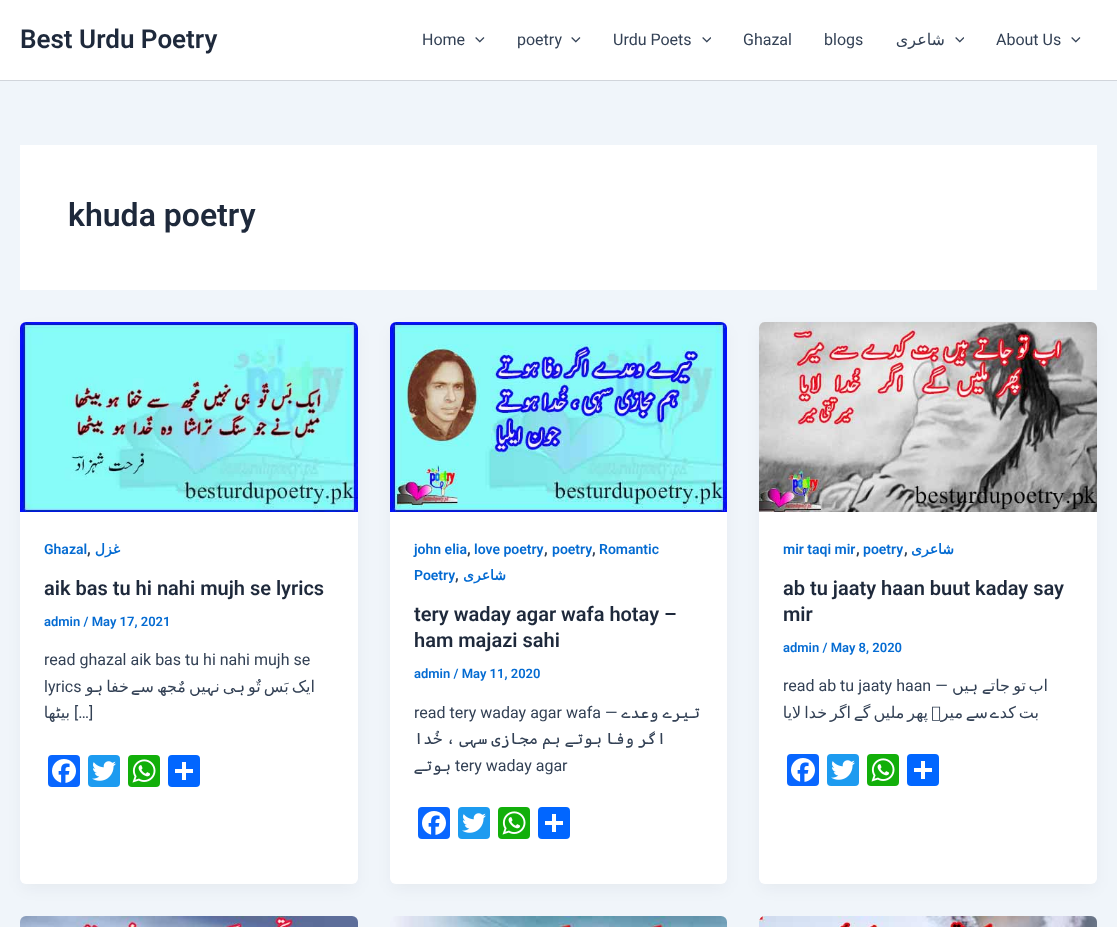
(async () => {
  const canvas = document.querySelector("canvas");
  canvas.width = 1117;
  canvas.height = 927;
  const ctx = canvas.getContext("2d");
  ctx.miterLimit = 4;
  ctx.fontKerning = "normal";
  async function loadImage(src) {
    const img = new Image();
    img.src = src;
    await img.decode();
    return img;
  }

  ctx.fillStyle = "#f0f5fa";
  ctx.fillRect(0, 0, 1117, 927);
  ctx.fillStyle = "#ffffff";
  ctx.fillRect(0, 0, 1117, 80);
  ctx.fillStyle = "#d1d5db";
  ctx.fillRect(0, 80, 1117, 1);
  ctx.drawImage(await loadImage("img/1.png"), 475, 37, 10, 6);
  ctx.drawImage(await loadImage("img/1.png"), 571, 37, 10, 6);
  ctx.drawImage(await loadImage("img/2.png"), 702, 37, 9, 6);
  ctx.drawImage(await loadImage("img/2.png"), 955, 37, 9, 6);
  ctx.drawImage(await loadImage("img/1.png"), 1071, 37, 10, 6);
  ctx.fillStyle = "#ffffff";
  ctx.fillRect(20, 145, 1077, 145);
  ctx.fillStyle = "rgba(16, 24, 40, 0.05)";
  ctx.filter = "blur(7.5px)";
  ctx.beginPath();
  ctx.roundRect(22, 330, 334, 558, 4);
  ctx.fill();
  ctx.filter = "none";
  ctx.fillStyle = "#ffffff";
  ctx.beginPath();
  ctx.roundRect(20, 322, 338, 562, 6);
  ctx.fill();
  ctx.drawImage(await loadImage("img/3.png"), 20, 322, 338, 190);
  ctx.fillStyle = "#0866ff";
  ctx.beginPath();
  ctx.roundRect(48, 755, 32, 32, 4);
  ctx.fill();
  ctx.drawImage(await loadImage("img/4.png"), 52, 759, 24, 24);
  ctx.fillStyle = "#1d9bf0";
  ctx.beginPath();
  ctx.roundRect(88, 755, 32, 32, 4);
  ctx.fill();
  ctx.drawImage(await loadImage("img/5.png"), 92, 761, 24, 20);
  ctx.fillStyle = "#12af0a";
  ctx.beginPath();
  ctx.roundRect(128, 755, 32, 32, 4);
  ctx.fill();
  ctx.drawImage(await loadImage("img/6.png"), 132, 759, 24, 24);
  ctx.fillStyle = "#0166ff";
  ctx.beginPath();
  ctx.roundRect(168, 755, 32, 32, 4);
  ctx.fill();
  ctx.fillStyle = "#ffffff";
  ctx.fillRect(182, 762, 4, 18);
  ctx.fillRect(175, 769, 18, 4);
  ctx.fillStyle = "rgba(16, 24, 40, 0.05)";
  ctx.filter = "blur(7.5px)";
  ctx.beginPath();
  ctx.roundRect(392, 330, 333, 558, 4);
  ctx.fill();
  ctx.filter = "none";
  ctx.fillStyle = "#ffffff";
  ctx.beginPath();
  ctx.roundRect(390, 322, 337, 562, 6);
  ctx.fill();
  ctx.drawImage(await loadImage("img/7.png"), 390, 322, 337, 190);
  ctx.fillStyle = "#0866ff";
  ctx.beginPath();
  ctx.roundRect(418, 807, 32, 32, 4);
  ctx.fill();
  ctx.drawImage(await loadImage("img/4.png"), 422, 811, 24, 24);
  ctx.fillStyle = "#1d9bf0";
  ctx.beginPath();
  ctx.roundRect(458, 807, 32, 32, 4);
  ctx.fill();
  ctx.drawImage(await loadImage("img/5.png"), 462, 813, 24, 20);
  ctx.fillStyle = "#12af0a";
  ctx.beginPath();
  ctx.roundRect(498, 807, 32, 32, 4);
  ctx.fill();
  ctx.drawImage(await loadImage("img/6.png"), 502, 811, 24, 24);
  ctx.fillStyle = "#0166ff";
  ctx.beginPath();
  ctx.roundRect(538, 807, 32, 32, 4);
  ctx.fill();
  ctx.fillStyle = "#ffffff";
  ctx.fillRect(552, 814, 4, 18);
  ctx.fillRect(545, 821, 18, 4);
  ctx.fillStyle = "rgba(16, 24, 40, 0.05)";
  ctx.filter = "blur(7.5px)";
  ctx.beginPath();
  ctx.roundRect(761, 330, 334, 558, 4);
  ctx.fill();
  ctx.filter = "none";
  ctx.fillStyle = "#ffffff";
  ctx.beginPath();
  ctx.roundRect(759, 322, 338, 562, 6);
  ctx.fill();
  ctx.drawImage(await loadImage("img/8.png"), 759, 322, 338, 190);
  ctx.fillStyle = "#0866ff";
  ctx.beginPath();
  ctx.roundRect(787, 754, 32, 32, 4);
  ctx.fill();
  ctx.drawImage(await loadImage("img/4.png"), 791, 758, 24, 24);
  ctx.fillStyle = "#1d9bf0";
  ctx.beginPath();
  ctx.roundRect(827, 754, 32, 32, 4);
  ctx.fill();
  ctx.drawImage(await loadImage("img/5.png"), 831, 760, 24, 20);
  ctx.fillStyle = "#12af0a";
  ctx.beginPath();
  ctx.roundRect(867, 754, 32, 32, 4);
  ctx.fill();
  ctx.drawImage(await loadImage("img/6.png"), 871, 758, 24, 24);
  ctx.fillStyle = "#0166ff";
  ctx.beginPath();
  ctx.roundRect(907, 754, 32, 32, 4);
  ctx.fill();
  ctx.fillStyle = "#ffffff";
  ctx.fillRect(921, 761, 4, 18);
  ctx.fillRect(914, 768, 18, 4);
  ctx.drawImage(await loadImage("img/9.png"), 20, 916, 338, 11);
  ctx.drawImage(await loadImage("img/10.png"), 390, 916, 337, 11);
  ctx.drawImage(await loadImage("img/11.png"), 759, 916, 338, 11);
  ctx.font = "600 26px Roboto";
  ctx.fillStyle = "#1e293b";
  ctx.fillText("Best Urdu Poetry", 20, 48);
  ctx.font = "16px Roboto";
  ctx.fillStyle = "#334155";
  for (const [text, x, y] of [
    ["Home", 422, 45],
    ["poetry", 517, 45],
    ["Urdu Poets", 613, 45],
    ["Ghazal", 743, 45],
    ["blogs", 824, 45],
  ]) {
    ctx.fillText(text, x, y);
  }
  ctx.direction = "rtl";
  ctx.font = "16px DejaVu Sans";
  ctx.fillText("شاعری", 945, 45);
  ctx.direction = "ltr";
  ctx.font = "16px Roboto";
  ctx.fillText("About Us", 996, 45);
  ctx.font = "600 32px Roboto";
  ctx.fillStyle = "#1e293b";
  ctx.fillText("khuda poetry", 68, 226);
  ctx.font = "600 14px Roboto";
  ctx.fillStyle = "#046bd2";
  ctx.fillText("Ghazal", 44, 554);
  ctx.font = "600 16px Roboto";
  ctx.fillStyle = "#334155";
  ctx.fillText(",", 87, 554);
  ctx.direction = "rtl";
  ctx.font = "bold 14px DejaVu Sans";
  ctx.fillStyle = "#046bd2";
  ctx.fillText("غزل", 120, 554);
  ctx.direction = "ltr";
  ctx.font = "600 20px Roboto";
  ctx.fillStyle = "#1e293b";
  ctx.fillText("aik bas tu hi nahi mujh se lyrics", 44, 595);
  ctx.font = "600 13px Roboto";
  ctx.fillStyle = "#046bd2";
  ctx.fillText("admin / May 17, 2021", 44, 626);
  ctx.font = "16px Roboto";
  ctx.fillStyle = "#334155";
  ctx.fillText("read ghazal aik bas tu hi nahi mujh se", 44, 665);
  ctx.fillText("lyrics", 44, 692);
  ctx.direction = "rtl";
  ctx.font = "16px DejaVu Sans";
  ctx.fillText("‍و", 94, 692);
  ctx.font = "16px Cascadia Code";
  ctx.fillText("ہ‍", 103, 692);
  ctx.font = "16px DejaVu Sans";
  ctx.fillText("خفا", 129, 692);
  ctx.font = "16px Cascadia Code";
  ctx.fillText("‍ے", 140, 692);
  ctx.wordSpacing = "-2px";
  ctx.font = "16px DejaVu Sans";
  ctx.fillText("‍یں مٌجھ س‍", 206, 692);
  ctx.wordSpacing = "0px";
  ctx.font = "16px Cascadia Code";
  ctx.fillText("‍ہ‍", 215, 692);
  ctx.wordSpacing = "-2px";
  ctx.font = "16px DejaVu Sans";
  ctx.fillText("‍ی ن‍", 236, 692);
  ctx.wordSpacing = "0px";
  ctx.font = "16px Cascadia Code";
  ctx.fillText("ہ‍", 245, 692);
  ctx.wordSpacing = "-2px";
  ctx.font = "16px DejaVu Sans";
  ctx.fillText("ایک بَس تٌو", 315, 692);
  ctx.wordSpacing = "0px";
  ctx.fillText("بیٹھا", 70, 718);
  ctx.direction = "ltr";
  ctx.font = "16px Roboto";
  ctx.fillText("[…]", 74, 718);
  ctx.font = "600 14px Roboto";
  ctx.fillStyle = "#046bd2";
  ctx.fillText("john elia", 414, 554);
  ctx.font = "600 16px Roboto";
  ctx.fillStyle = "#334155";
  ctx.fillText(",", 467, 554);
  ctx.font = "600 14px Roboto";
  ctx.fillStyle = "#046bd2";
  ctx.fillText("love poetry", 474, 554);
  ctx.font = "600 16px Roboto";
  ctx.fillStyle = "#334155";
  ctx.fillText(",", 544, 554);
  ctx.font = "600 14px Roboto";
  ctx.fillStyle = "#046bd2";
  ctx.fillText("poetry", 552, 554);
  ctx.font = "600 16px Roboto";
  ctx.fillStyle = "#334155";
  ctx.fillText(",", 592, 554);
  ctx.font = "600 14px Roboto";
  ctx.fillStyle = "#046bd2";
  ctx.fillText("Romantic", 599, 554);
  ctx.fillText("Poetry", 414, 580);
  ctx.font = "600 16px Roboto";
  ctx.fillStyle = "#334155";
  ctx.fillText(",", 455, 580);
  ctx.direction = "rtl";
  ctx.font = "bold 14px DejaVu Sans";
  ctx.fillStyle = "#046bd2";
  ctx.fillText("شاعری", 506, 580);
  ctx.direction = "ltr";
  ctx.font = "600 20px Roboto";
  ctx.fillStyle = "#1e293b";
  ctx.fillText("tery waday agar wafa hotay –", 414, 621);
  ctx.fillText("ham majazi sahi", 414, 647);
  ctx.font = "600 13px Roboto";
  ctx.fillStyle = "#046bd2";
  ctx.fillText("admin / May 11, 2020", 414, 678);
  ctx.font = "16px Roboto";
  ctx.fillStyle = "#334155";
  ctx.fillText("read tery waday agar wafa —", 414, 718);
  ctx.wordSpacing = "-5.5px";
  ctx.direction = "rtl";
  ctx.font = "16px Cascadia Code";
  ctx.fillText("تیرے وعدے", 700, 718);
  ctx.fillText("اگر وفا ہوتے ہم مجازی سہی ، خُدا", 666, 744);
  ctx.wordSpacing = "0px";
  ctx.fillText("ہوتے", 451, 771);
  ctx.direction = "ltr";
  ctx.font = "16px Roboto";
  ctx.fillText("tery waday agar", 455, 771);
  ctx.font = "600 14px Roboto";
  ctx.fillStyle = "#046bd2";
  ctx.fillText("mir taqi mir", 783, 554);
  ctx.font = "600 16px Roboto";
  ctx.fillStyle = "#334155";
  ctx.fillText(",", 856, 554);
  ctx.font = "600 14px Roboto";
  ctx.fillStyle = "#046bd2";
  ctx.fillText("poetry", 863, 554);
  ctx.font = "600 16px Roboto";
  ctx.fillStyle = "#334155";
  ctx.fillText(",", 904, 554);
  ctx.direction = "rtl";
  ctx.font = "bold 14px DejaVu Sans";
  ctx.fillStyle = "#046bd2";
  ctx.fillText("شاعری", 954, 554);
  ctx.direction = "ltr";
  ctx.font = "600 20px Roboto";
  ctx.fillStyle = "#1e293b";
  ctx.fillText("ab tu jaaty haan buut kaday say", 783, 595);
  ctx.fillText("mir", 783, 621);
  ctx.font = "600 13px Roboto";
  ctx.fillStyle = "#046bd2";
  ctx.fillText("admin / May 8, 2020", 783, 652);
  ctx.font = "16px Roboto";
  ctx.fillStyle = "#334155";
  ctx.fillText("read ab tu jaaty haan —", 783, 691);
  ctx.direction = "rtl";
  ctx.font = "16px DejaVu Sans";
  ctx.fillText("‍یں", 969, 691);
  ctx.font = "16px Cascadia Code";
  ctx.fillText("ہ‍", 978, 691);
  ctx.fillText("‍ے", 991, 691);
  ctx.font = "16px DejaVu Sans";
  for (const [text, x, y] of [
    ["جات‍", 1010, 691],
    ["تو", 1026, 691],
    ["اب", 1048, 691],
  ]) {
    ctx.fillText(text, x, y);
  }
  ctx.wordSpacing = "-2px";
  ctx.fillText("اگر خدا لایا", 851, 718);
  ctx.wordSpacing = "0px";
  ctx.font = "16px Cascadia Code";
  ctx.fillText("‍ے", 863, 718);
  ctx.wordSpacing = "-2px";
  ctx.font = "16px DejaVu Sans";
  ctx.fillText("پھر ملیں گ‍", 928, 718);
  ctx.wordSpacing = "0px";
  ctx.fillText("میرؔ", 963, 718);
  ctx.font = "16px Cascadia Code";
  ctx.fillText("‍ے", 975, 718);
  ctx.font = "16px DejaVu Sans";
  ctx.fillText("س‍", 988, 718);
  ctx.font = "16px Cascadia Code";
  ctx.fillText("ے", 999, 718);
  ctx.wordSpacing = "-2px";
  ctx.font = "16px DejaVu Sans";
  ctx.fillText("بت کد", 1039, 718);
})();
